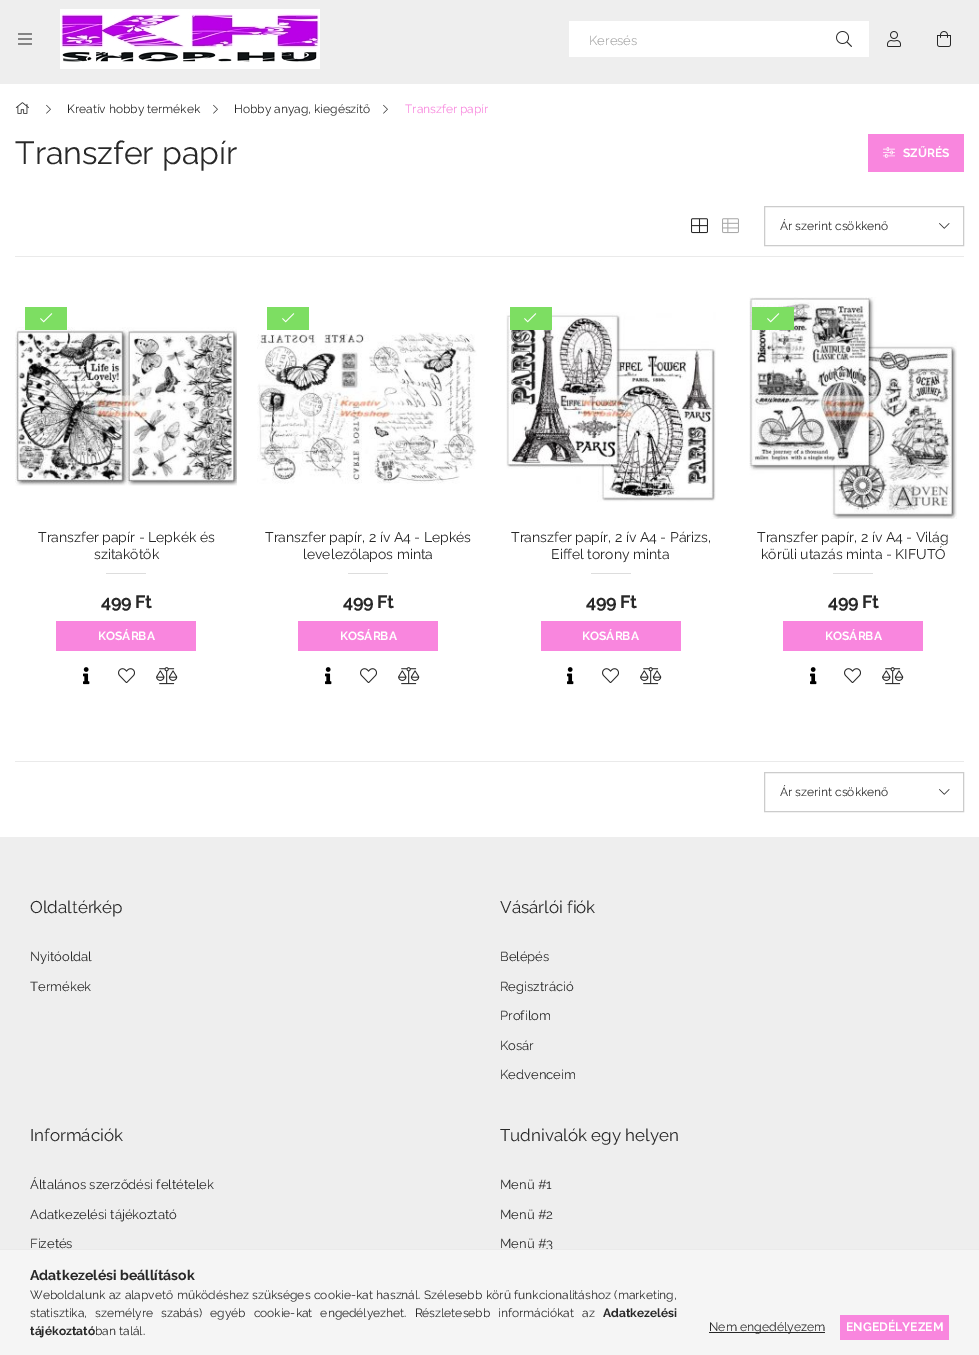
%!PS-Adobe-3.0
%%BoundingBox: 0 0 979 1355
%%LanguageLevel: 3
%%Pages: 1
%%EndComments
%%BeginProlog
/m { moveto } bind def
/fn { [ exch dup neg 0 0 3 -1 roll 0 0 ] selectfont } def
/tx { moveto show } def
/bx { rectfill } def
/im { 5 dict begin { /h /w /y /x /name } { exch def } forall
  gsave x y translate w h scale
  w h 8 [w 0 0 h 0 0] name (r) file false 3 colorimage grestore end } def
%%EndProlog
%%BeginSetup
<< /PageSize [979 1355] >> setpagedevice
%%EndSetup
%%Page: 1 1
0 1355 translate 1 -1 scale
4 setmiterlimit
1 setgray
0 0 979 1355 bx
0.933 setgray
0 0 979 84 bx
(image0.raw) 18 33 14 12 im
(image1.raw) 60 9 260 60 im
1 setgray
569 21 300 36 bx
/Raleway-Regular 13 fn
0.667 setgray
(Keresés) 589 45 tx
(image2.raw) 836 31 16 16 im
(image3.raw) 887 31 14 16 im
(image4.raw) 937 31 14 16 im
(image5.raw) 15 102 14 12 im
(image6.raw) 46 104 5 10 im
/Raleway-Regular 12 fn
0.157 setgray
(Kreatív hobby termékek) 67 113 tx
(image6.raw) 213 104 5 10 im
(Hobby anyag, kiegészítő) 234 113 tx
(image6.raw) 383 104 5 10 im
0.976 0.525 0.871 setrgbcolor
(Transzfer papír) 405 113 tx
/Raleway-Regular 32 fn
0.157 setgray
(Transzfer papír) 15 164 tx
0.976 0.525 0.871 setrgbcolor
868 134 96 38 bx
(image7.raw) 883 147 12 11 im
/Raleway-Bold 12 fn
1 setgray
(SZŰRÉS) 903 157 tx
0.918 setgray
15 256 949 1 bx
(image8.raw) 691 218 17 16 im
(image9.raw) 722 218 17 16 im
0.8 setgray
764.5 206.5 199 39 rectstroke
/Raleway-Regular 12 fn
0.157 setgray
(Ár szerint csökkenő) 780 230 tx
(image10.raw) 939 223 11 6 im
(image12.raw) 15 327 222 159 im
0.49 0.871 0.384 setrgbcolor
25 307 42 23 bx
(image11.raw) 40 313 13 10 im
/Raleway-Regular 14 fn
0.157 setgray
(Transzfer papír - Lepkék és) 38 542 tx
(szitakötők) 94 559 tx
0.867 setgray
106 573 40 1 bx
/Raleway-Bold 18 fn
0.157 setgray
101 608 m -0.5 0 (499 Ft) ashow
0.976 0.525 0.871 setrgbcolor
56 621 140 30 bx
/Raleway-Bold 12 fn
1 setgray
(KOSÁRBA) 98 640 tx
(image13.raw) 83 667 7 18 im
(image14.raw) 118 668 17 15 im
(image15.raw) 156 667 22 18 im
0.49 0.871 0.384 setrgbcolor
267 307 42 23 bx
(image11.raw) 282 313 13 10 im
(image16.raw) 257 332 220 152 im
/Raleway-Regular 14 fn
0.157 setgray
(Transzfer papír, 2 ív A4 - Lepkés) 265 542 tx
(levelezőlapos minta) 303 559 tx
0.867 setgray
348 573 40 1 bx
/Raleway-Bold 18 fn
0.157 setgray
343 608 m -0.5 0 (499 Ft) ashow
0.976 0.525 0.871 setrgbcolor
298 621 140 30 bx
/Raleway-Bold 12 fn
1 setgray
(KOSÁRBA) 340 640 tx
(image13.raw) 325 667 7 18 im
(image14.raw) 360 668 17 15 im
(image15.raw) 398 667 22 18 im
(image17.raw) 506 312 210 190 im
0.49 0.871 0.384 setrgbcolor
510 307 42 23 bx
(image11.raw) 524 313 13 10 im
/Raleway-Regular 14 fn
0.157 setgray
(Transzfer papír, 2 ív A4 - Párizs,) 511 542 tx
(Eiffel torony minta) 551 559 tx
0.867 setgray
591 573 40 1 bx
/Raleway-Bold 18 fn
0.157 setgray
586 608 m -0.5 0 (499 Ft) ashow
0.976 0.525 0.871 setrgbcolor
541 621 140 30 bx
/Raleway-Bold 12 fn
1 setgray
(KOSÁRBA) 582 640 tx
(image13.raw) 567 667 7 18 im
(image14.raw) 602 668 17 15 im
(image15.raw) 640 667 22 18 im
(image18.raw) 749 297 208 222 im
0.49 0.871 0.384 setrgbcolor
752 307 42 23 bx
(image11.raw) 767 313 13 10 im
/Raleway-Regular 14 fn
0.157 setgray
(Transzfer papír, 2 ív A4 - Világ) 757 542 tx
(körüli utazás minta - KIFUTÓ) 761 559 tx
0.867 setgray
833 573 40 1 bx
/Raleway-Bold 18 fn
0.157 setgray
828 608 m -0.5 0 (499 Ft) ashow
0.976 0.525 0.871 setrgbcolor
783 621 140 30 bx
/Raleway-Bold 12 fn
1 setgray
(KOSÁRBA) 825 640 tx
(image13.raw) 810 667 7 18 im
(image14.raw) 844 668 17 15 im
(image15.raw) 882 667 22 18 im
0.918 setgray
15 761 949 1 bx
0.8 setgray
764.5 772.5 199 39 rectstroke
/Raleway-Regular 12 fn
0.157 setgray
(Ár szerint csökkenő) 780 796 tx
(image10.raw) 939 789 11 6 im
0.933 setgray
0 837 979 412 bx
/Raleway-Regular 17 fn
0.157 setgray
(Oldaltérkép) 30 913 tx
/Raleway-Regular 13 fn
(Nyitóoldal) 30 961 tx
(Termékek) 30 991 tx
/Raleway-Regular 17 fn
(Vásárlói fiók) 500 913 tx
/Raleway-Regular 13 fn
(Belépés) 500 961 tx
(Regisztráció) 500 991 tx
(Profilom) 500 1020 tx
(Kosár) 500 1050 tx
(Kedvenceim) 500 1079 tx
/Raleway-Regular 17 fn
(Információk) 30 1141 tx
/Raleway-Regular 13 fn
(Általános szerződési feltételek) 30 1189 tx
(Adatkezelési tájékoztató) 30 1219 tx
(Fizetés) 30 1248 tx
/Raleway-Regular 17 fn
(Tudnivalók egy helyen) 500 1141 tx
/Raleway-Regular 13 fn
(Menü #1) 500 1189 tx
(Menü #2) 500 1219 tx
(Menü #3) 500 1248 tx
0.961 setgray
0 1250 979 105 bx
0.918 setgray
0 1249 979 1 bx
/Raleway-Bold 14 fn
0.157 setgray
(Adatkezelési beállítások) 30 1280 tx
/Raleway-Regular 12 fn
30 1299 m 0.5 0 32 (Weboldalunk az alapvető működéshez szükséges cookie-kat használ. Szélesebb körű funkcionalitáshoz \(marketing,) widthshow
30 1317 m 5 0 32 (statisztika, személyre szabás\) egyéb cookie-kat engedélyezhet. Részletesebb információkat az) widthshow
/Raleway-Bold 12 fn
(Adatkezelési) 603 1317 tx
(tájékoztató) 30 1335 tx
/Raleway-Regular 12 fn
(ban talál.) 95 1335 tx
709 1332 116 1 bx
/Raleway-Regular 12.25 fn
(Nem engedélyezem) 709 1331 tx
0.976 0.525 0.871 setrgbcolor
840 1315 109 25 bx
/Raleway-Bold 12.25 fn
1 setgray
(ENGEDÉLYEZEM) 846 1331 tx
showpage
%%EOF
